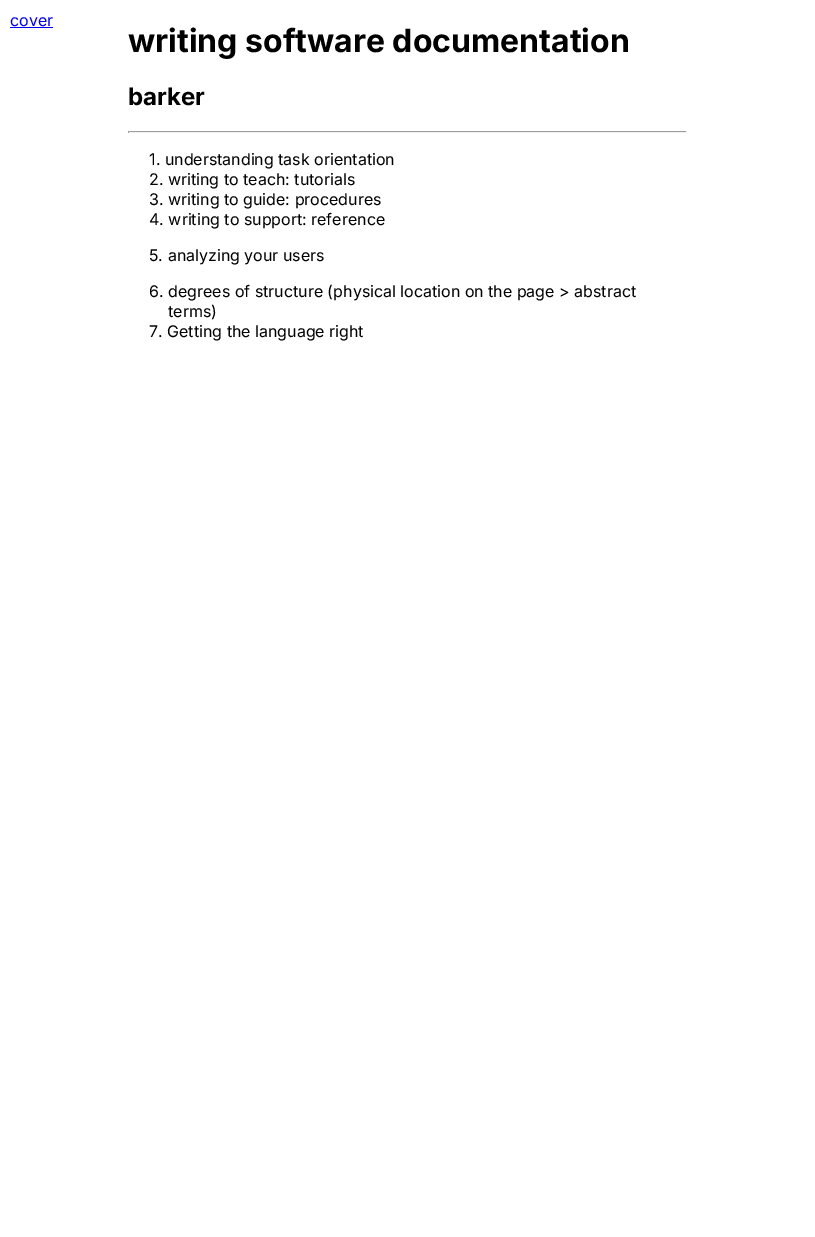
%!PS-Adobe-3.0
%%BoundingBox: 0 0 815 1237
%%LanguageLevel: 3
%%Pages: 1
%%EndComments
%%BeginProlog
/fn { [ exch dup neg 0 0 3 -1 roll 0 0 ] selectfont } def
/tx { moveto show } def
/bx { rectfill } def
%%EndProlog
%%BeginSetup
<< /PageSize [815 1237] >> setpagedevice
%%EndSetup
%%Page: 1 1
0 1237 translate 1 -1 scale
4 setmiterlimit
1 setgray
0 0 815 1237 bx
/Inter-Regular 16 fn
0 0 0.933 setrgbcolor
(cover) 10 26 tx
10 27 43 1 bx
/Inter-Bold 32 fn
0 setgray
(writing software documentation) 128 52 tx
/Inter-Bold 24 fn
(barker) 128 105 tx
0.624 setgray
128 131 559 1 bx
0.933 setgray
686 131 1 2 bx
128 132 559 1 bx
0.624 setgray
128 131 1 2 bx
/Inter-Regular 16 fn
0 setgray
(1. understanding task orientation) 149 165 tx
(2. writing to teach: tutorials) 149 185 tx
(3. writing to guide: procedures) 149 205 tx
(4. writing to support: reference) 149 225 tx
(5. analyzing your users) 149 261 tx
(6. degrees of structure \(physical location on the page > abstract) 149 297 tx
(terms\)) 168 317 tx
(7. Getting the language right) 149 337 tx
showpage
%%EOF
